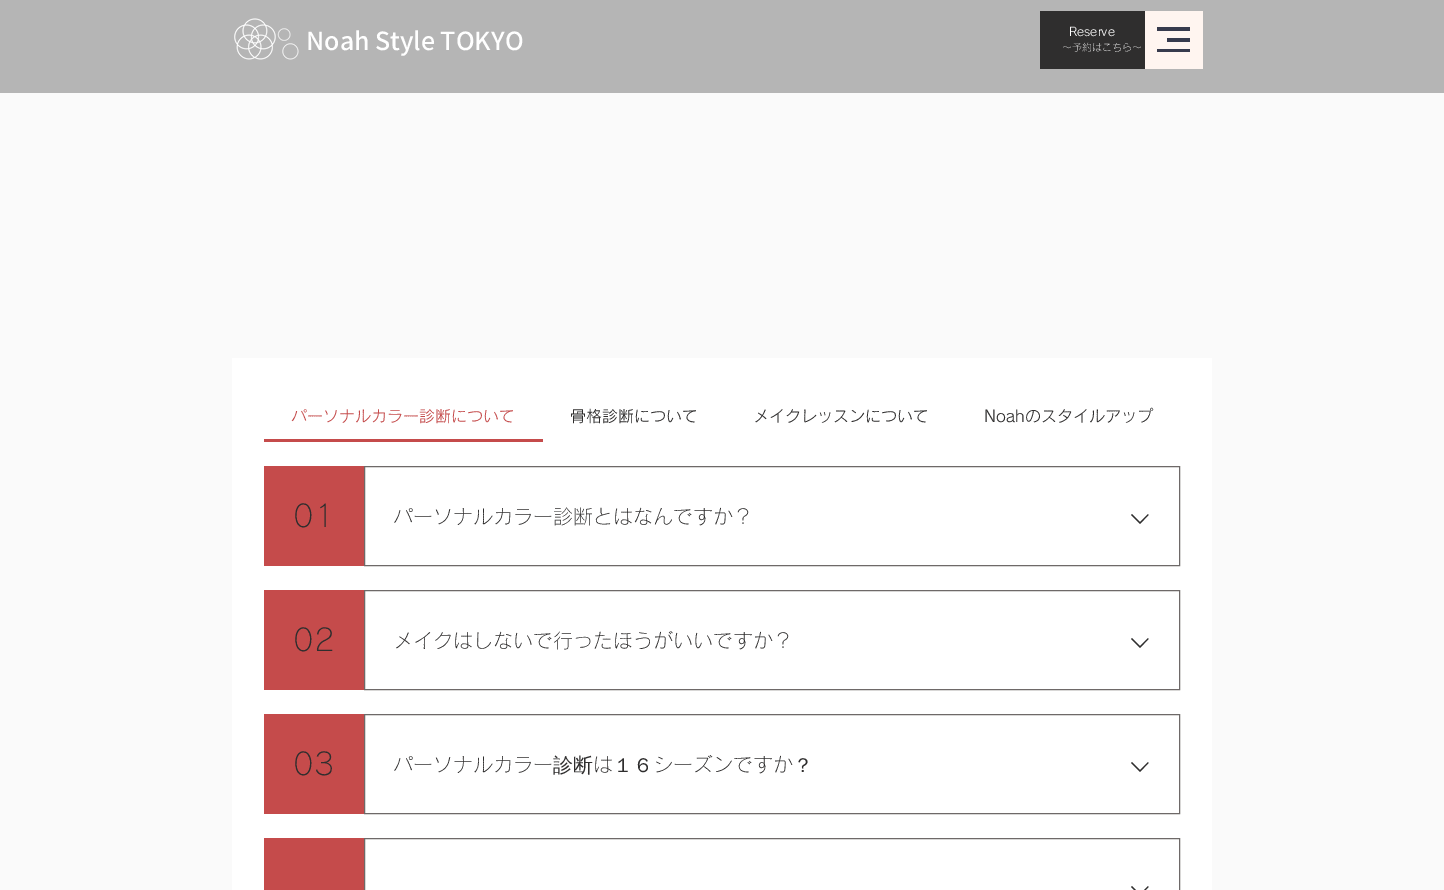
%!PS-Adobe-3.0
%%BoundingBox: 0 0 1444 890
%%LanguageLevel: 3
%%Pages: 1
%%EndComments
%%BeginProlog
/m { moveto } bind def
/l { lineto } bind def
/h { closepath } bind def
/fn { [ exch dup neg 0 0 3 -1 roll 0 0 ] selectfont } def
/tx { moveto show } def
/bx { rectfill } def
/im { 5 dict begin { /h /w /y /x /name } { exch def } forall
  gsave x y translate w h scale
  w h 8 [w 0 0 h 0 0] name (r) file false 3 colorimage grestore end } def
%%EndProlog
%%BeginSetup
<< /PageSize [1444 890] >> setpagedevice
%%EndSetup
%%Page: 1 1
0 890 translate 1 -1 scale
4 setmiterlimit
0.98 setgray
0 0 1444 890 bx
0.71 setgray
0 0 1444 93 bx
0.184 0.18 0.18 setrgbcolor
1040 11 105 58 bx
1 0.961 0.941 setrgbcolor
1145 11 58 58 bx
(image0.raw) 234 18 65 42 im
/Assistant-SemiBold 28 fn
1 setgray
(Noah Style TOKYO) 306 50 tx
/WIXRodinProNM-Medium 12 fn
(Reserve) 1069 36 tx
/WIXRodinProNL-Light 10 fn
(〜予約はこちら〜) 1062 51 tx
0.216 0.231 0.302 setrgbcolor
1157 27 33 4 bx
1167 38 23 4 bx
1157 49 33 3 bx
1 setgray
232 358 980 532 bx
0.773 0.294 0.294 setrgbcolor
264 439 279 3 bx
/WIXRodinProNM-Medium 16 fn
(パーソナルカラー診断について) 291 422 tx
0.184 0.18 0.18 setrgbcolor
(骨格診断について) 570 422 tx
(メイクレッスンについて) 753 422 tx
(Noahのスタイルアップ) 984 422 tx
0.773 0.294 0.294 setrgbcolor
264 466 100 100 bx
/WIXRodinProNL-Light 30 fn
0.184 0.18 0.18 setrgbcolor
(01) 293 527 tx
0.431 0.412 0.408 setrgbcolor
364.5 466.5 815 99 rectstroke
/WIXRodinProNL-Light 20 fn
0.184 0.18 0.18 setrgbcolor
(パーソナルカラー診断とはなんですか？) 393 524 tx
1148 514 m 1148.5 515 l 1140 524 l 1131 515 l 1132 514 l 1140 522 l h eofill
0.773 0.294 0.294 setrgbcolor
264 590 100 100 bx
/WIXRodinProNL-Light 30 fn
0.184 0.18 0.18 setrgbcolor
(02) 293 651 tx
0.431 0.412 0.408 setrgbcolor
364.5 590.5 815 99 rectstroke
/WIXRodinProNL-Light 20 fn
0.184 0.18 0.18 setrgbcolor
(メイクはしないで行ったほうがいいですか？) 393 648 tx
1148 638 m 1148.5 639 l 1140 648 l 1131 639 l 1132 638 l 1140 646 l h eofill
0.773 0.294 0.294 setrgbcolor
264 714 100 100 bx
/WIXRodinProNL-Light 30 fn
0.184 0.18 0.18 setrgbcolor
(03) 293 775 tx
0.431 0.412 0.408 setrgbcolor
364.5 714.5 815 99 rectstroke
/WIXRodinProNL-Light 20 fn
0.184 0.18 0.18 setrgbcolor
(パーソナルカラー) 393 772 tx
/WenQuanYiZenHei-Medium 20 fn
(診断) 553 772 tx
/WIXRodinProNL-Light 20 fn
(は) 593 772 tx
/WenQuanYiZenHei-Medium 20 fn
(１６) 613 772 tx
/WIXRodinProNL-Light 20 fn
(シーズンですか) 653 772 tx
/WenQuanYiZenHei-Medium 20 fn
(？) 793 772 tx
1148 762 m 1148.5 763 l 1140 772 l 1131 763 l 1132 762 l 1140 770 l h eofill
0.773 0.294 0.294 setrgbcolor
264 838 100 52 bx
0.431 0.412 0.408 setrgbcolor
364.5 838.5 815 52 rectstroke
0.184 0.18 0.18 setrgbcolor
1148 886 m 1148.5 887 l 1140 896 l 1131 887 l 1132 886 l 1140 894 l h eofill
showpage
%%EOF
